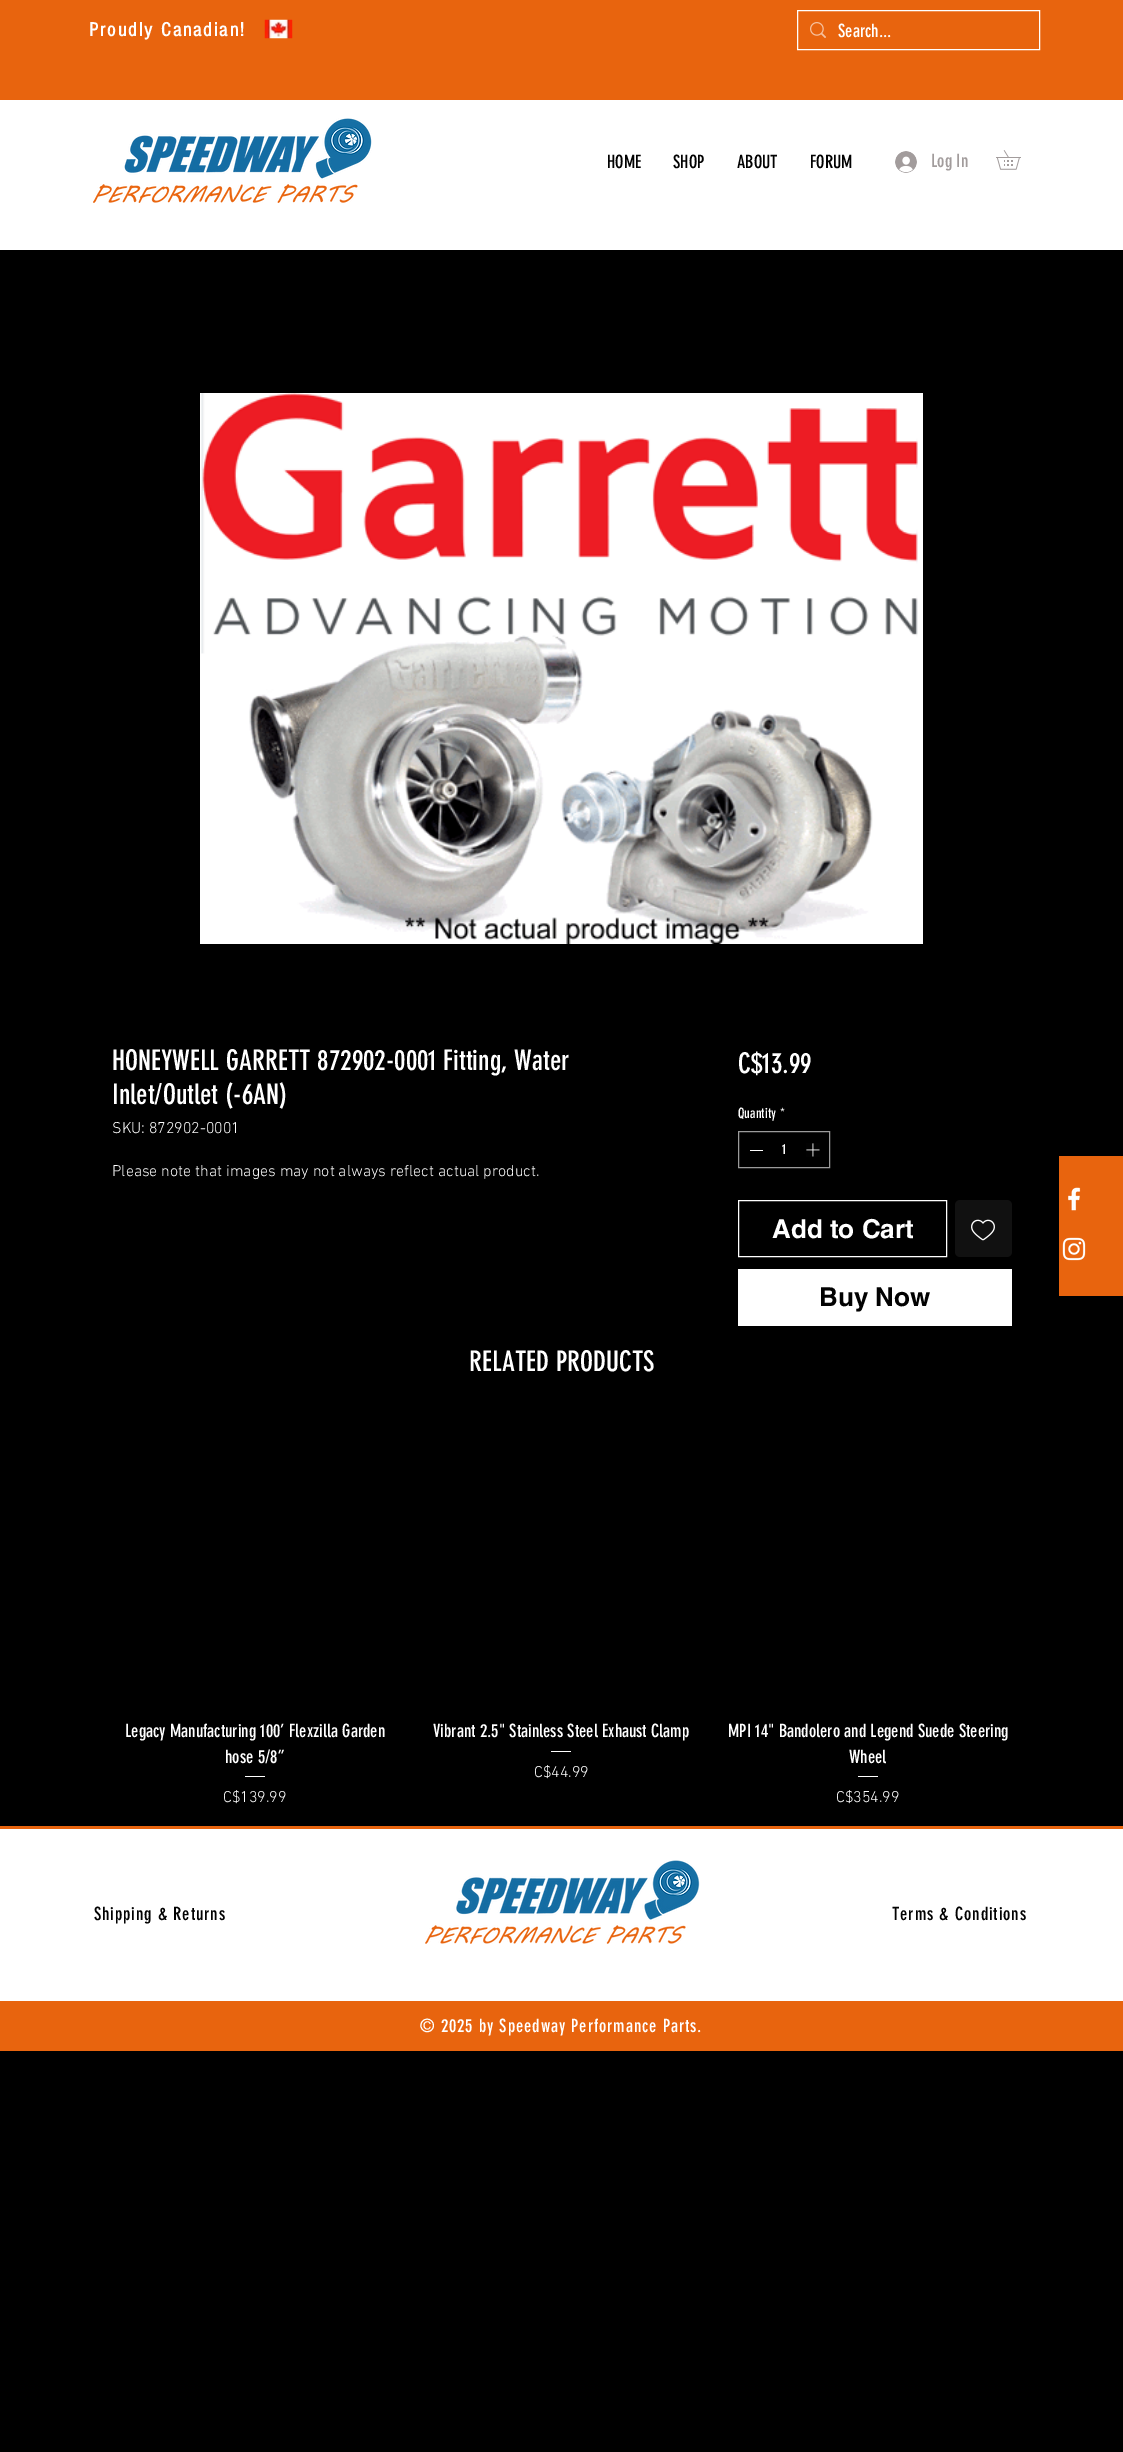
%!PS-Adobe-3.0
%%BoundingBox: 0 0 1123 2452
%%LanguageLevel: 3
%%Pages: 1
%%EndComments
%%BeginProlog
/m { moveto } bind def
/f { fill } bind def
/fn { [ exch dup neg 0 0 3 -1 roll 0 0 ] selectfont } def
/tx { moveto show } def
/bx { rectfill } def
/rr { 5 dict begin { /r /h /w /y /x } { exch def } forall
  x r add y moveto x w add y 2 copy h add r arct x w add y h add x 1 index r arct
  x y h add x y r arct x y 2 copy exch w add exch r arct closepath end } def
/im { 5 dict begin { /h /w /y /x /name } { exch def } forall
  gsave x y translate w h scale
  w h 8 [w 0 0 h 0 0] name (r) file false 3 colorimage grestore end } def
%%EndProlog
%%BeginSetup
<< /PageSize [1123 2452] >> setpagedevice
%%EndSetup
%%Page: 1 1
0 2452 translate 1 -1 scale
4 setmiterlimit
0 setgray
0 0 1123 2452 bx
0.91 0.392 0.055 setrgbcolor
0 0 1123 100 bx
/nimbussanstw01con-Bold 20 fn
1 setgray
89 36 m 2 0 (Proudly Canadian!) ashow
(image0.raw) 264 19 29 20 im
797.5 10.5 242 39 rectstroke
(image1.raw) 810 22 16 16 im
/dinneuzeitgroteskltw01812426-Regular 18 fn
(Search...) 838 37 tx
0 100 1123 150 bx
(image2.raw) 93 118 279 85 im
0.008 setgray
(HOME) 607 168 tx
(SHOP) 673 168 tx
(ABOUT) 737 168 tx
(FORUM) 810 168 tx
(image3.raw) 895 151 22 22 im
0.635 0.612 0.612 setrgbcolor
(Log In) 931 167 tx
(image4.raw) 996 150 25 20 im
(image5.raw) 200 393 723 551 im
/dinneuzeitgroteskltw01812426-Regular 28 fn
1 setgray
(HONEYWELL GARRETT 872902-0001 Fitting, Water) 112 1070 tx
(Inlet/Outlet \(-6AN\)) 112 1104 tx
/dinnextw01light-Light 16 fn
(SKU: 872902-0001) 112 1133 tx
(Please note that images may not always reflect actual product.) 112 1176 tx
/dinneuzeitgroteskltw01812426-Regular 28 fn
(C$13.99) 738 1073 tx
/dinneuzeitgroteskltw01812426-Regular 14 fn
(Quantity) 738 1118 tx
(*) 780 1118 tx
0.604 setgray
738.5 1131.5 91 36 rectstroke
1 setgray
750 1150 13 1 bx
(1) 782 1154 tx
(image6.raw) 806 1143 14 14 im
738.5 1200.5 208 56 rectstroke
/helvetica-Bold 26 fn
(Add to Cart) 772 1238 tx
0.067 setgray
955 1200 57 57 5 rr f
(image7.raw) 971 1219 24 22 im
1 setgray
738 1269 274 57 bx
0.008 setgray
(Buy Now) 819 1306 tx
/dinneuzeitgroteskltw01812426-Regular 28 fn
1 setgray
(RELATED PRODUCTS) 469 1371 tx
/dinneuzeitgroteskltw01812426-Regular 18 fn
(Legacy Manufacturing 100’ Flexzilla Garden) 125 1737 tx
(hose 5/8”) 225 1763 tx
245 1776 20 1 bx
/dinnextw01light-Light 16 fn
(C$139.99) 223 1802 tx
/dinneuzeitgroteskltw01812426-Regular 18 fn
(Vibrant 2.5" Stainless Steel Exhaust Clamp) 433 1737 tx
551 1751 20 1 bx
/dinnextw01light-Light 16 fn
(C$44.99) 534 1777 tx
/dinneuzeitgroteskltw01812426-Regular 18 fn
(MPI 14" Bandolero and Legend Suede Steering) 728 1737 tx
(Wheel) 849 1763 tx
858 1776 20 1 bx
/dinnextw01light-Light 16 fn
(C$354.99) 836 1802 tx
0.91 0.392 0.055 setrgbcolor
1059 1156 64 140 bx
(image8.raw) 1068 1187 13 24 im
(image9.raw) 1062 1237 24 24 im
1 setgray
0 1829 1123 172 bx
0.91 0.392 0.055 setrgbcolor
0 1826 1123 3 bx
/dinneuzeitgroteskltw01812426-Regular 18 fn
0.008 setgray
94 1920 m 0.9 0 (Shipping & Returns) ashow
(image10.raw) 425 1860 275 84 im
892 1920 m 0.9 0 (Terms & Conditions) ashow
0.91 0.392 0.055 setrgbcolor
0 2001 1123 50 bx
1 setgray
420 2032 m 0.9 0 (© 2025 by Speedway Performance Parts.) ashow
showpage
%%EOF
